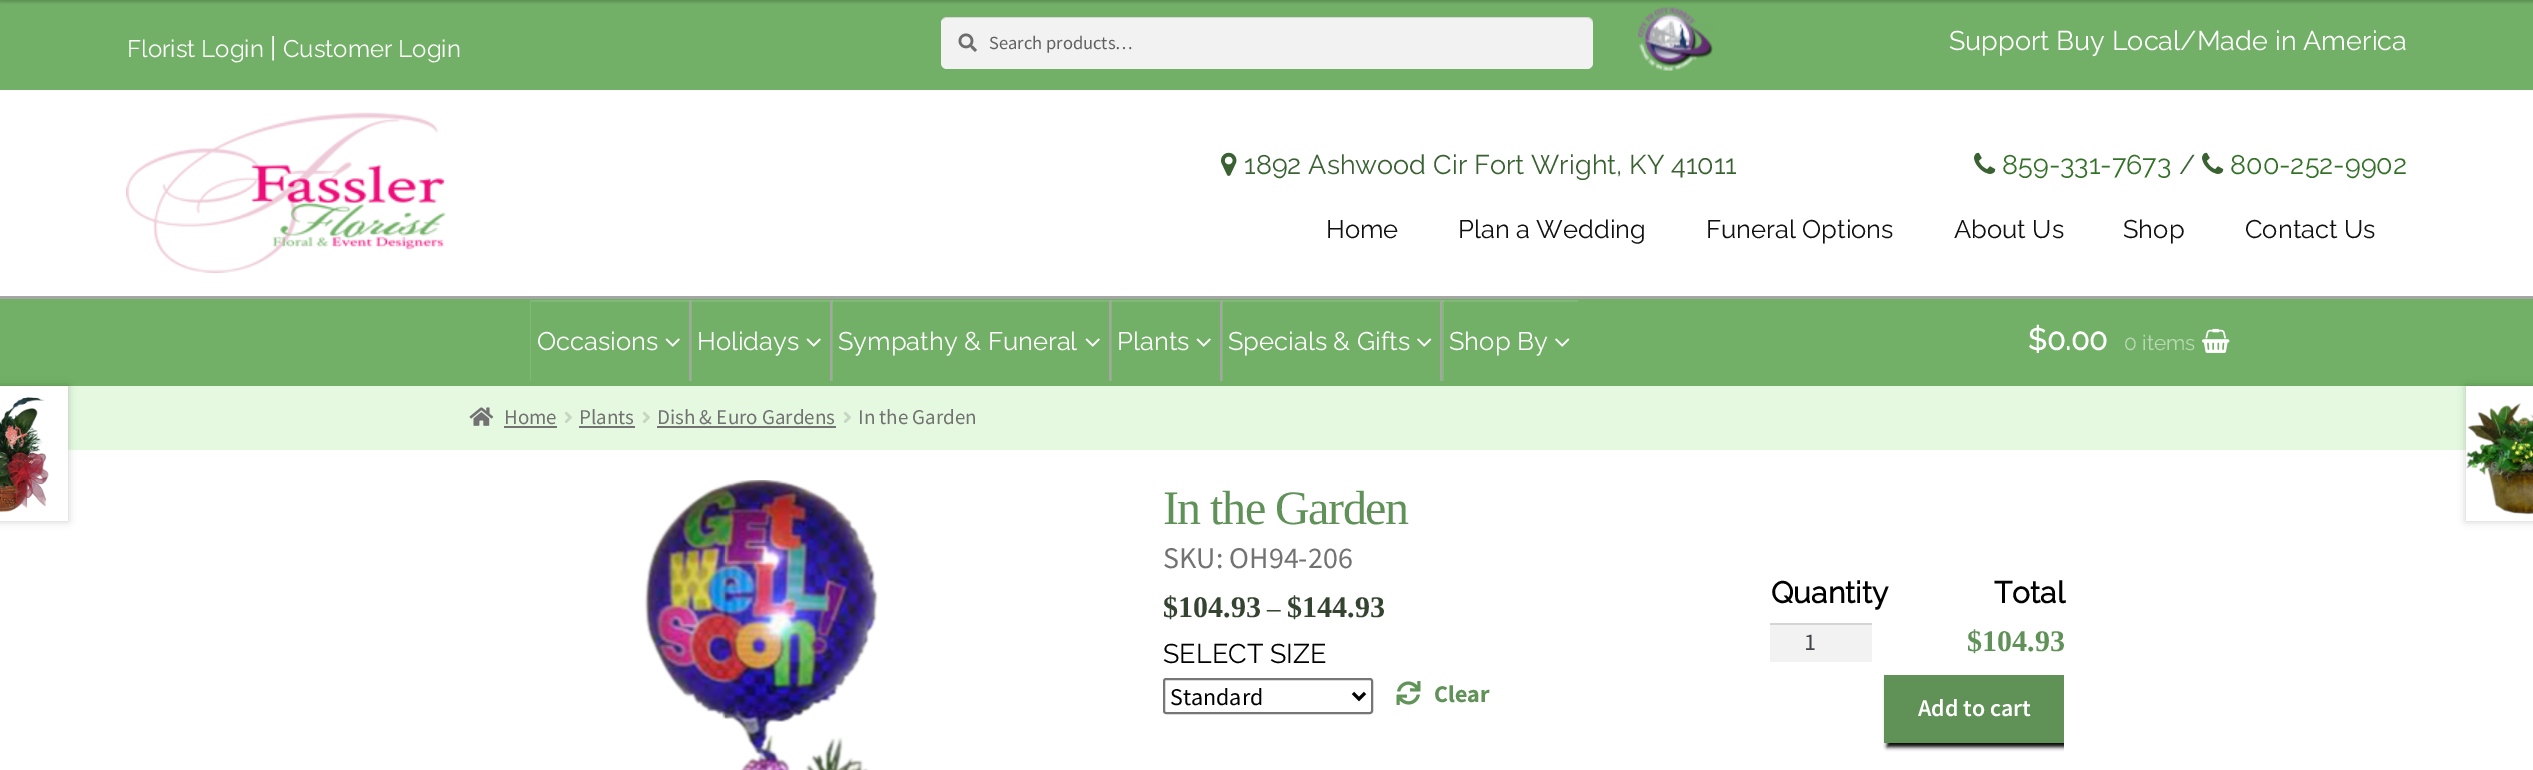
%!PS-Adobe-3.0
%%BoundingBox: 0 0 2533 770
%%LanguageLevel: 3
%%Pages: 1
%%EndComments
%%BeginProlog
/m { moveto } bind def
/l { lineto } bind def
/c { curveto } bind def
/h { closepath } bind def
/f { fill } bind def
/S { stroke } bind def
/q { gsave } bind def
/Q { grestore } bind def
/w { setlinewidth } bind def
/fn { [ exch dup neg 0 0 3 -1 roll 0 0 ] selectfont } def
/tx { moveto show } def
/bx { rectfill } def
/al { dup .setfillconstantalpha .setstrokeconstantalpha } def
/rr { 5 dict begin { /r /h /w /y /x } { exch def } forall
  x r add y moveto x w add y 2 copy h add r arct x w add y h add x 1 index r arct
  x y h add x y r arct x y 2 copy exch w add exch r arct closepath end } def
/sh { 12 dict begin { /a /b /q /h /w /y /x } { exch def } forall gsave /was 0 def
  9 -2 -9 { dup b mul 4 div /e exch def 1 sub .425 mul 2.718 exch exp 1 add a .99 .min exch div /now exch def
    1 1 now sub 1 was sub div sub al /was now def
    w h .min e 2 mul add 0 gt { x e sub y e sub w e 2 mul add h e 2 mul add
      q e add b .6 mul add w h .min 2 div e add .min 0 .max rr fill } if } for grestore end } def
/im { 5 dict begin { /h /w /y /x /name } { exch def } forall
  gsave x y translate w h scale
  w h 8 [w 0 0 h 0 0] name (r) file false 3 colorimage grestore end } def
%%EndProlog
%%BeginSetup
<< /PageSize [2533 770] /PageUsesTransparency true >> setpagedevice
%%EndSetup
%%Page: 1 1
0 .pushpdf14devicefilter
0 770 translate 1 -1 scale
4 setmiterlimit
1 setgray
0 0 2533 770 bx
0.447 0.69 0.404 setrgbcolor
0 0 2533 90 bx
(image1.raw) 1638 7 75 64 im
0 setgray
0 -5 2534 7 0 1.5 0.2 sh
/Raleway-Thin 24 fn
1 setgray
(Florist Login) 127 57 tx
/Raleway-Thin 27 fn
(|) 270 57 tx
/Raleway-Thin 24 fn
(Customer Login) 283 57 tx
0.949 setgray
941 17 652 52 6 rr f
(image0.raw) 958 33 19 19 im
0.12 al
0 setgray
946 18 m 1587 18 l 1590 18 1593 21 1593 24 c 1593 23 l 1593 20 1590 17 1587 17 c 947 17 l 945 17 943 18 942 20 c 943 19 945 18 946 18 c h f
/SourceSansPro-Regular 18.5 fn
1 al
0.38 setgray
(Search products…) 989 49 tx
/Raleway-Thin 27 fn
1 setgray
(Support Buy Local/Made in America) 1949 50 tx
(image2.raw) 126 112 320 161 im
(image3.raw) 1221 152 16 24 im
0.224 0.38 0.196 setrgbcolor
(1892 Ashwood Cir Fort Wright, KY 41011) 1244 174 tx
(image4.raw) 1974 152 22 22 im
0.196 0.443 0.153 setrgbcolor
(859-331-7673) 2002 174 tx
0.224 0.38 0.196 setrgbcolor
(/) 2179 174 tx
(image4.raw) 2202 152 22 22 im
0.196 0.443 0.153 setrgbcolor
(800-252-9902) 2230 174 tx
/Raleway-Thin 25.5 fn
0.067 setgray
(Home) 1326 238 tx
(Plan a Wedding) 1458 238 tx
(Funeral Options) 1706 238 tx
(About Us) 1954 238 tx
(Shop) 2123 238 tx
(Contact Us) 2245 238 tx
0.447 0.69 0.404 setrgbcolor
0 299 2533 87 bx
0.647 setgray
0 296 2533 3 bx
q
530 300 1048 81 rectclip
0.502 0.722 0.463 setrgbcolor
381 152 m 1726 152 l 1726 530 l 381 530 l h 531 302 m 1580 302 l 1580 382 l 531 382 l h eofill
Q
1 setgray
(Occasions) 537 350 tx
(image5.raw) 665 338 15 9 im
0.1 al
691 300 1 81 bx
1 al
0.647 setgray
689 300 2 81 bx
1 setgray
(Holidays) 697 350 tx
(image5.raw) 806 338 15 9 im
0.1 al
832 300 1 81 bx
1 al
0.647 setgray
830 300 2 81 bx
1 setgray
(Sympathy & Funeral) 838 350 tx
(image5.raw) 1085 338 15 9 im
0.1 al
1111 300 1 81 bx
1 al
0.647 setgray
1109 300 2 81 bx
1 setgray
(Plants) 1117 350 tx
(image5.raw) 1196 338 15 9 im
0.1 al
1222 300 1 81 bx
1 al
0.647 setgray
1220 300 2 81 bx
1 setgray
(Specials & Gifts) 1228 350 tx
(image6.raw) 1417 338 15 9 im
0.1 al
1442 300 2 81 bx
1 al
0.647 setgray
1440 300 2 81 bx
1 setgray
(Shop By) 1449 350 tx
(image6.raw) 1555 338 15 9 im
/Raleway-Bold 30 fn
($0.00) 2028 350 tx
/Raleway-Thin 21 fn
0.725 0.847 0.702 setrgbcolor
(0 items) 2124 350 tx
(image7.raw) 2202 328 28 25 im
0.894 0.976 0.878 setrgbcolor
68 386 2398 64 bx
(image8.raw) 469 407 25 19 im
/SourceSansPro-Regular 21 fn
0.447 setgray
(Home) 504 424 tx
504 426 53 2 bx
(image9.raw) 564 411 8 12 im
(Plants) 579 424 tx
579 426 56 2 bx
(image9.raw) 642 411 8 12 im
(Dish & Euro Gardens) 657 424 tx
657 426 179 2 bx
(image9.raw) 843 411 8 12 im
(In the Garden) 858 424 tx
0 setgray
-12 386 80 135 0 4 0.2 sh
1 setgray
0 386 68 135 bx
(image10.raw) 0 397 49 116 im
0 setgray
2466 386 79 135 0 4 0.2 sh
1 setgray
2466 386 67 135 bx
(image11.raw) 2466 403 67 112 im
(image12.raw) 644 480 234 290 im
/LiberationSerif-Regular 48 fn
0.376 0.569 0.345 setrgbcolor
1163 524 m -1.5 0 (In the Garden) ashow
/SourceSansPro-Regular 30 fn
0.447 setgray
(SKU: OH94-206) 1163 568 tx
/Raleway-Thin 27 fn
0 setgray
(SELECT SIZE) 1163 663 tx
0.463 setgray
2 w
1164 679 208 34 2 rr S
0 setgray
3 w
1353 693 m 1359 699 l 1365 693 l S
/SourceSansPro-Regular 24 fn
(Standard) 1170 705 tx
(image13.raw) 1396 681 25 24 im
/SourceSansPro-Bold 24 fn
0.376 0.569 0.345 setrgbcolor
(Clear) 1434 702 tx
/Raleway-Bold 30 fn
0 setgray
(Quantity) 1771 603 tx
0.949 setgray
1770 625 102 37 bx
0.831 setgray
1770 623 102 2 bx
/SourceSansPro-Regular 24 fn
0.263 0.271 0.294 setrgbcolor
(1) 1804 650 tx
q
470 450 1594 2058 rectclip
0 setgray
1887 680 180 67 0 2 1 sh
Q
0.376 0.573 0.345 setrgbcolor
1884 675 180 68 bx
/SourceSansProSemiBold-SemiBold 24 fn
1 setgray
(Add to cart) 1918 716 tx
/Raleway-Bold 30 fn
0 setgray
(Total) 1994 603 tx
/LiberationSerif-Bold 30 fn
0.376 0.569 0.345 setrgbcolor
($104.93) 1967 651 tx
0.204 0.267 0.192 setrgbcolor
($104.93) 1163 617 tx
/LiberationSerif-Regular 27 fn
(–) 1267 617 tx
/LiberationSerif-Bold 30 fn
($144.93) 1287 617 tx
.poppdf14devicefilter showpage
%%EOF
